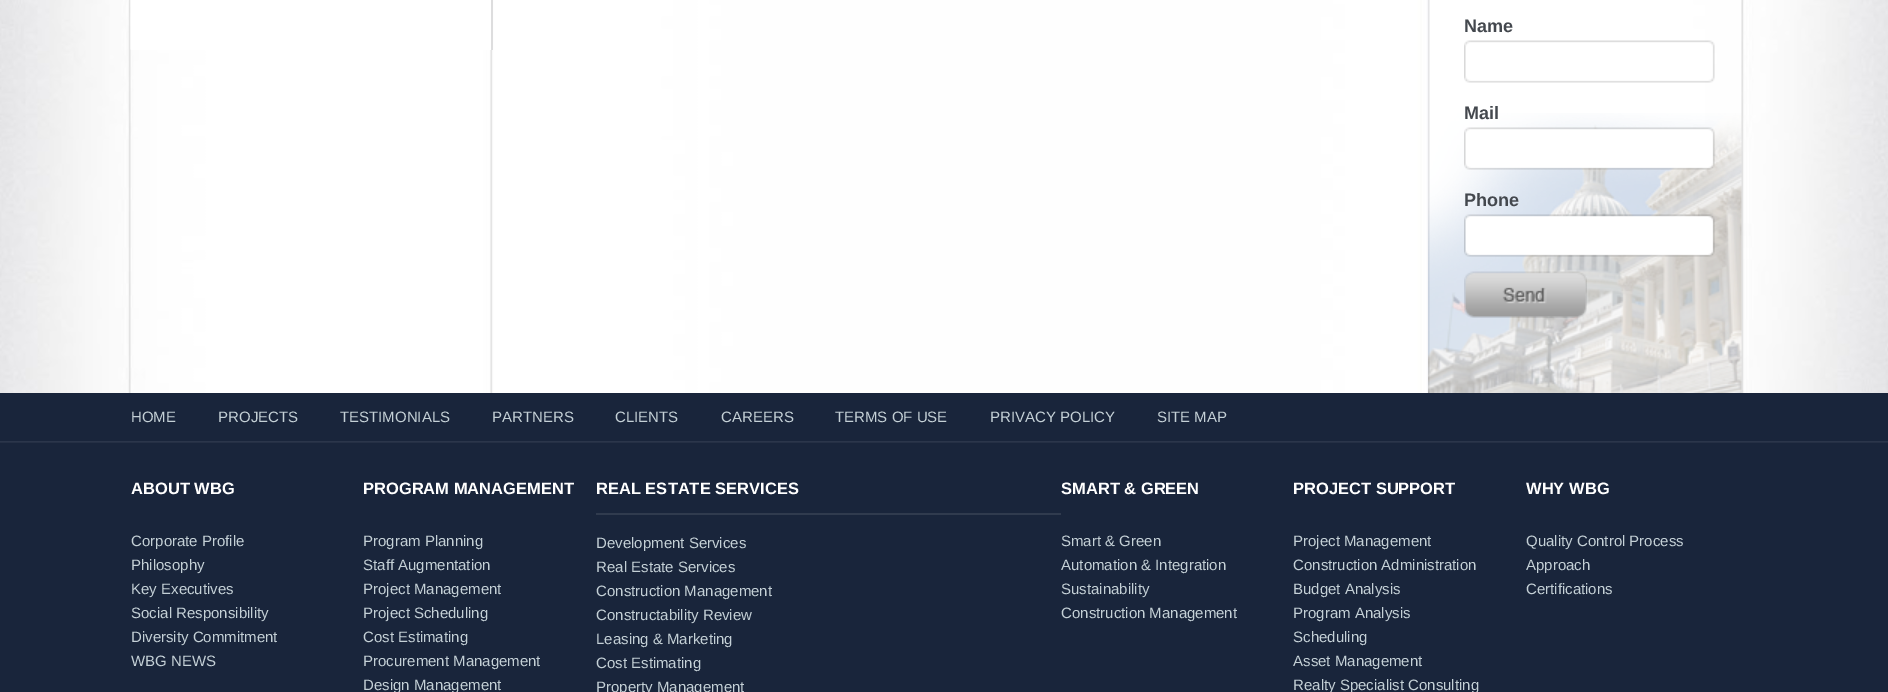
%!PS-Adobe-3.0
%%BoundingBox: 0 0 1888 692
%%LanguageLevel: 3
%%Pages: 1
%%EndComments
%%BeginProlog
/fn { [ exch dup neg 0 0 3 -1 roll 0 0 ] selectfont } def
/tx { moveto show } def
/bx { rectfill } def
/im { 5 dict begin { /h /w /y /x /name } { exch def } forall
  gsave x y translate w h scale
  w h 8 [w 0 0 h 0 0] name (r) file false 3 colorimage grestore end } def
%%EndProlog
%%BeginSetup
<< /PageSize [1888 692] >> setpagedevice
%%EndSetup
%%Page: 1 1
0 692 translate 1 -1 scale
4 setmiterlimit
1 setgray
0 0 1888 692 bx
(image0.raw) 0 0 1888 393 im
131 0 360 50 bx
(image1.raw) 130 0 1 50 im
0.867 0.867 0.871 setrgbcolor
491 0 2 50 bx
(image2.raw) 1428 113 314 280 im
/LiberationSans-Bold 18 fn
0.267 0.282 0.306 setrgbcolor
(Name) 1464 32 tx
(image3.raw) 1464 40 251 43 im
(Mail) 1464 119 tx
(image4.raw) 1464 127 251 43 im
(Phone) 1464 206 tx
(image5.raw) 1464 214 251 43 im
(image6.raw) 1464 271 123 47 im
0.098 0.145 0.231 setrgbcolor
0 393 1888 299 bx
(image7.raw) 0 441 1888 2 im
/LiberationSans-Regular 15 fn
0.769 0.816 0.839 setrgbcolor
(HOME) 131 422 tx
(PROJECTS) 218 422 tx
(TESTIMONIALS) 340 422 tx
(PARTNERS) 492 422 tx
(CLIENTS) 615 422 tx
(CAREERS) 721 422 tx
(TERMS OF USE) 835 422 tx
(PRIVACY POLICY) 990 422 tx
(SITE MAP) 1157 422 tx
/LiberationSans-Bold 16.5 fn
1 setgray
(ABOUT WBG) 131 494 tx
/LiberationSans-Regular 15 fn
0.769 0.816 0.839 setrgbcolor
(Corporate Profile) 131 546 tx
(Philosophy) 131 570 tx
(Key Executives) 131 594 tx
(Social Responsibility) 131 618 tx
(Diversity Commitment) 131 642 tx
(WBG NEWS) 131 666 tx
/LiberationSans-Bold 16.5 fn
1 setgray
(PROGRAM MANAGEMENT) 363 494 tx
/LiberationSans-Regular 15 fn
0.769 0.816 0.839 setrgbcolor
(Program Planning) 363 546 tx
(Staff Augmentation) 363 570 tx
(Project Management) 363 594 tx
(Project Scheduling) 363 618 tx
(Cost Estimating) 363 642 tx
(Procurement Management) 363 666 tx
(Design Management) 363 690 tx
0.188 0.231 0.306 setrgbcolor
596 513 465 2 bx
/LiberationSans-Bold 16.5 fn
1 setgray
(REAL ESTATE SERVICES) 596 494 tx
/LiberationSans-Regular 15 fn
0.769 0.816 0.839 setrgbcolor
(Development Services) 596 548 tx
(Real Estate Services) 596 572 tx
(Construction Management) 596 596 tx
(Constructability Review) 596 620 tx
(Leasing & Marketing) 596 644 tx
(Cost Estimating) 596 668 tx
(Property Management) 596 692 tx
/LiberationSans-Bold 16.5 fn
1 setgray
(SMART & GREEN) 1061 494 tx
/LiberationSans-Regular 15 fn
0.769 0.816 0.839 setrgbcolor
(Smart & Green) 1061 546 tx
(Automation & Integration) 1061 570 tx
(Sustainability) 1061 594 tx
(Construction Management) 1061 618 tx
/LiberationSans-Bold 16.5 fn
1 setgray
(PROJECT SUPPORT) 1293 494 tx
/LiberationSans-Regular 15 fn
0.769 0.816 0.839 setrgbcolor
(Project Management) 1293 546 tx
(Construction Administration) 1293 570 tx
(Budget Analysis) 1293 594 tx
(Program Analysis) 1293 618 tx
(Scheduling) 1293 642 tx
(Asset Management) 1293 666 tx
(Realty Specialist Consulting) 1293 690 tx
/LiberationSans-Bold 16.5 fn
1 setgray
(WHY WBG) 1526 494 tx
/LiberationSans-Regular 15 fn
0.769 0.816 0.839 setrgbcolor
(Quality Control Process) 1526 546 tx
(Approach) 1526 570 tx
(Certifications) 1526 594 tx
showpage
%%EOF
